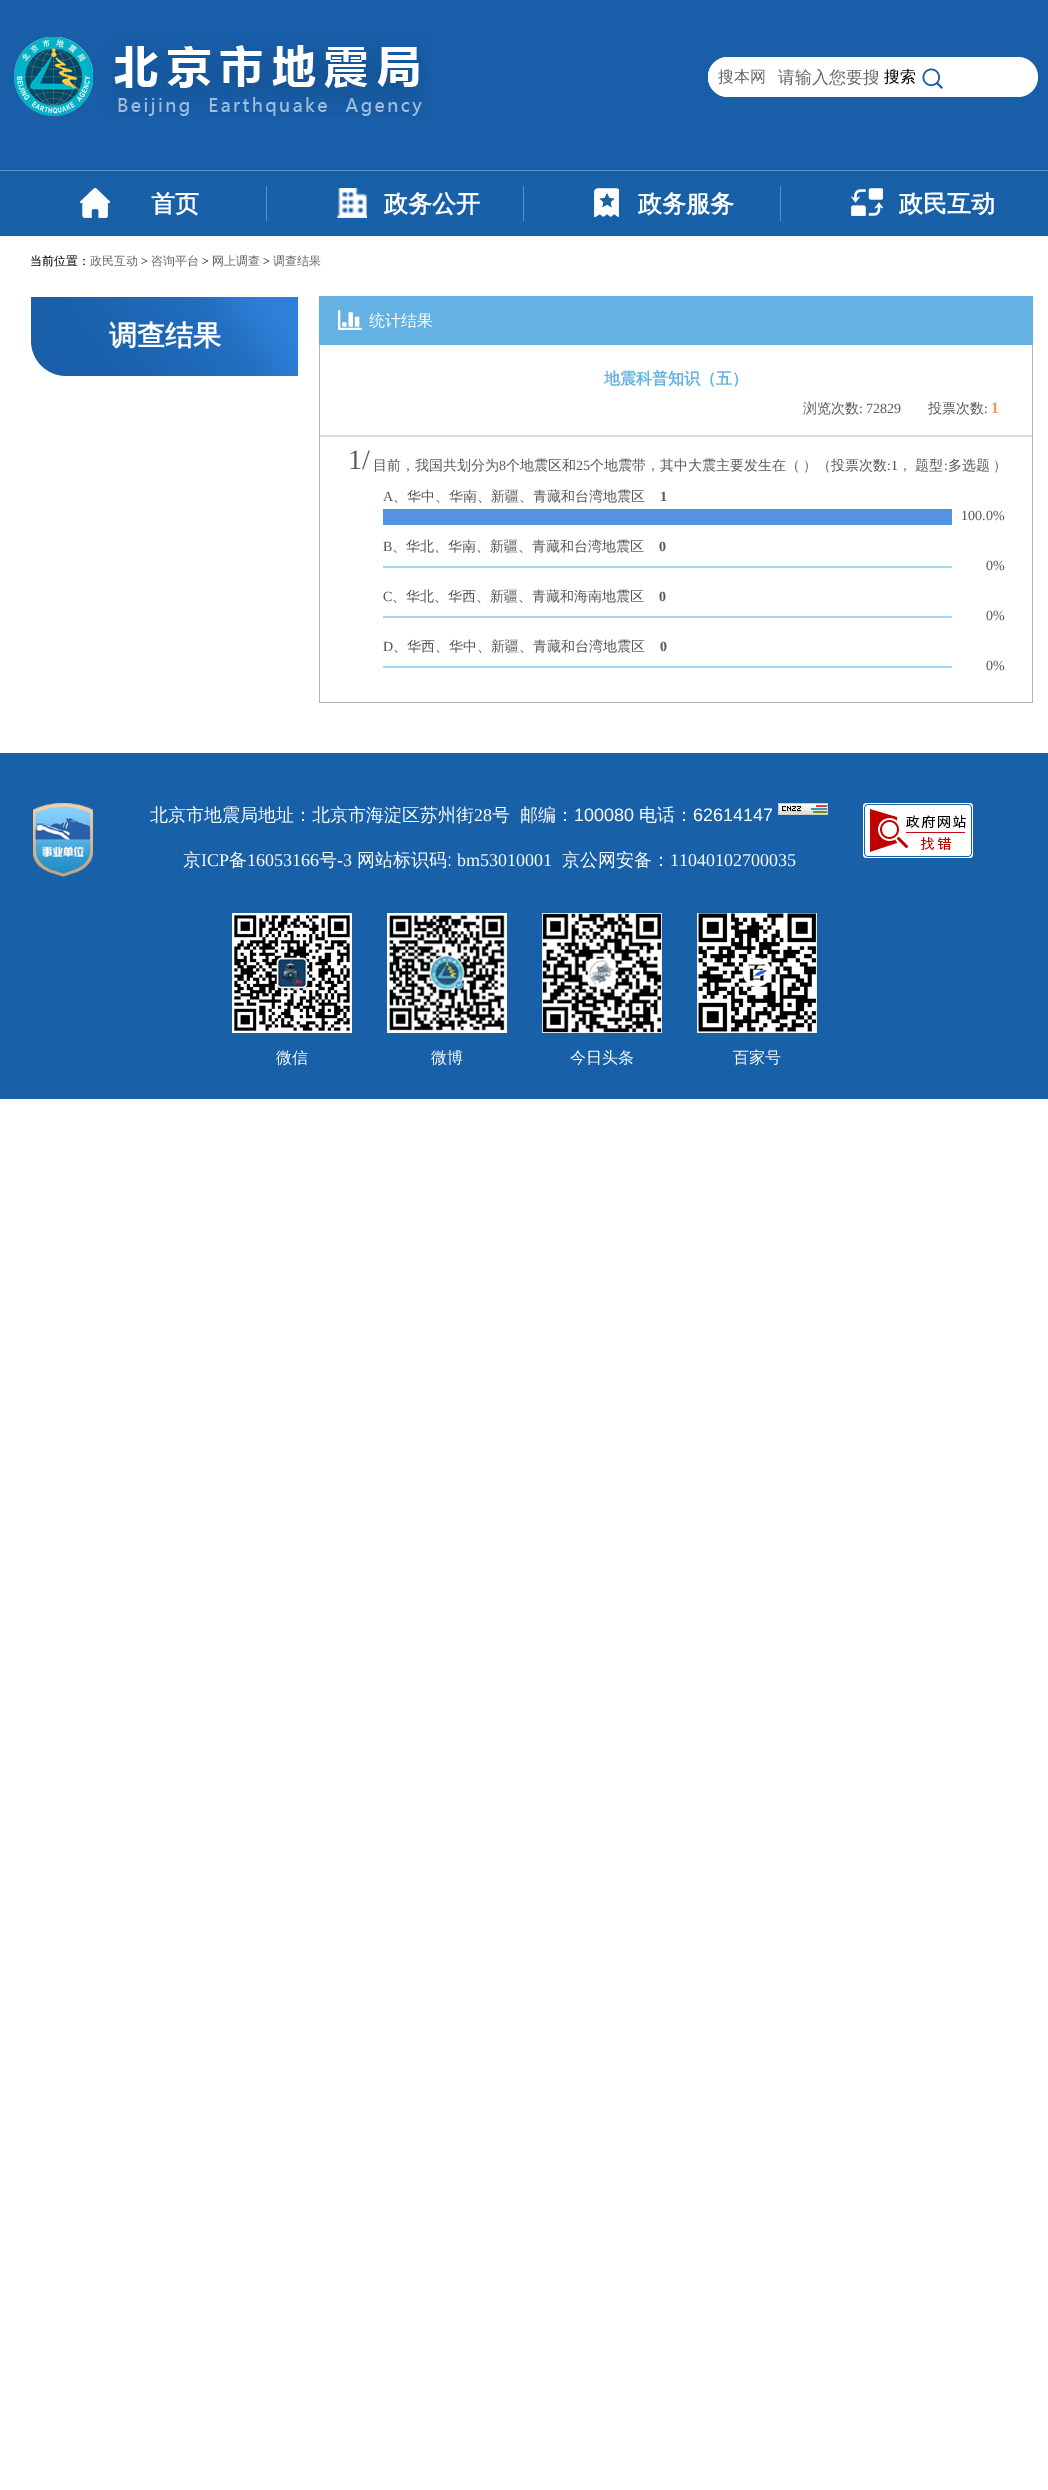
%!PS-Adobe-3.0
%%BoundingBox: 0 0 1048 2490
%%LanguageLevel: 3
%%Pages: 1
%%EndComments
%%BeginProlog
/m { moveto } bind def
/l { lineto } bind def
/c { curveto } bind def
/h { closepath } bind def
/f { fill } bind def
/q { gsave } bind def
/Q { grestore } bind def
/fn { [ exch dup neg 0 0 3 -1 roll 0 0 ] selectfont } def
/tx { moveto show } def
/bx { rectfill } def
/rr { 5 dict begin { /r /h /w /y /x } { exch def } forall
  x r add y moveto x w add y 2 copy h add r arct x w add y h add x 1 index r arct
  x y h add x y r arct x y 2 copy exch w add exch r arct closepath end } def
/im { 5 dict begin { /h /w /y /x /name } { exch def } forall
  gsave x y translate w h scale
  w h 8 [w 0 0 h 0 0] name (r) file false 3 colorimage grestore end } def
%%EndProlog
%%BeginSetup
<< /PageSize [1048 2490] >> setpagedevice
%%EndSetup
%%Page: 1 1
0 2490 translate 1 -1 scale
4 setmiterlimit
1 setgray
0 0 1048 2490 bx
0.094 0.369 0.663 setrgbcolor
0 0 1048 170 bx
0.353 0.569 0.773 setrgbcolor
0 170 1048 1 bx
(image0.raw) 14 37 418 80 im
1 setgray
708 57 330 40 20 rr f
728 57 m 768 57 l 768 97 l 728 97 l 717 97 708 88 708 77 c 708 66 717 57 728 57 c h f
/WenQuanYiZenHei-Medium 16 fn
0.4 setgray
(搜本网) 718 82 tx
q
778 66 100 23 rectclip
/WenQuanYiZenHei-Medium 17 fn
(请输入您要搜) 778 83 tx
Q
0 setgray
(搜索) 884 82 tx
(image1.raw) 922 68 21 21 im
0.094 0.376 0.659 setrgbcolor
0 171 1048 65 bx
0.353 0.569 0.773 setrgbcolor
266 186 1 35 bx
(image2.raw) 80 188 30 30 im
/WenQuanYiZenHei-Bold 24 fn
1 setgray
(首页) 151 212 tx
0.353 0.569 0.773 setrgbcolor
523 186 1 35 bx
(image3.raw) 337 188 30 30 im
1 setgray
(政务公开) 384 212 tx
0.353 0.569 0.773 setrgbcolor
780 186 1 35 bx
(image4.raw) 594 188 25 29 im
1 setgray
(政务服务) 638 212 tx
(image5.raw) 851 188 32 28 im
(政民互动) 899 212 tx
/WenQuanYiZenHei-Medium 12 fn
0 setgray
(当前位置：) 30 265 tx
0.4 setgray
(政民互动) 90 265 tx
/LiberationSerif-Regular 12 fn
0 setgray
(>) 141 265 tx
/WenQuanYiZenHei-Medium 12 fn
0.4 setgray
(咨询平台) 151 265 tx
/LiberationSerif-Regular 12 fn
0 setgray
(>) 202 265 tx
/WenQuanYiZenHei-Medium 12 fn
0.4 setgray
(网上调查) 212 265 tx
/LiberationSerif-Regular 12 fn
0 setgray
(>) 263 265 tx
/WenQuanYiZenHei-Medium 12 fn
0.4 setgray
(调查结果) 273 265 tx
(image6.raw) 31 297 267 79 im
/WenQuanYiZenHei-Bold 28 fn
1 setgray
(调查结果) 109 345 tx
0.863 setgray
320 435 712 2 bx
0.392 0.698 0.89 setrgbcolor
319 296 714 49 bx
(image7.raw) 338 310 24 20 im
/WenQuanYiZenHei-Medium 16 fn
1 setgray
(统计结果) 369 326 tx
0.71 setgray
1032 345 1 358 bx
319 702 714 1 bx
319 345 1 358 bx
/WenQuanYiZenHei-Bold 16 fn
0.392 0.698 0.89 setrgbcolor
(地震科普知识（五）) 604 384 tx
/WenQuanYiZenHei-Medium 14 fn
0.349 0.341 0.341 setrgbcolor
(浏览次数) 803 413 tx
/LiberationSerif-Regular 14 fn
(: 72829) 859 413 tx
/WenQuanYiZenHei-Medium 14 fn
(投票次数) 928 413 tx
/LiberationSerif-Regular 14 fn
(:) 984 413 tx
/LiberationSerif-Bold 16 fn
0.902 0.616 0.384 setrgbcolor
(1) 991 413 tx
/LiberationSerif-Regular 28 fn
0.349 0.341 0.341 setrgbcolor
(1/) 348 469 tx
/WenQuanYiZenHei-Medium 14 fn
(目前，我国共划分为) 373 470 tx
/LiberationSerif-Regular 14 fn
(8) 499 470 tx
/WenQuanYiZenHei-Medium 14 fn
(个地震区和) 506 470 tx
/LiberationSerif-Regular 14 fn
(25) 576 470 tx
/WenQuanYiZenHei-Medium 14 fn
590 470 m -1 0 32 (个地震带，其中大震主要发生在（ ）（投票次数) widthshow
/LiberationSerif-Regular 14 fn
(:1) 887 470 tx
/WenQuanYiZenHei-Medium 14 fn
898 470 m -1 0 32 (， 题型) widthshow
/LiberationSerif-Regular 14 fn
(:) 944 470 tx
/WenQuanYiZenHei-Medium 14 fn
948 470 m -1 0 32 (多选题 ）) widthshow
/LiberationSerif-Regular 14 fn
(A) 383 501 tx
/WenQuanYiZenHei-Medium 14 fn
(、华中、华南、新疆、青藏和台湾地震区) 393 501 tx
/LiberationSerif-Bold 14 fn
(1) 660 501 tx
0.337 0.573 0.89 setrgbcolor
383 509 569 16 bx
/LiberationSerif-Regular 14 fn
0.349 0.341 0.341 setrgbcolor
(100.0%) 961 520 tx
(B) 383 551 tx
/WenQuanYiZenHei-Medium 14 fn
(、华北、华南、新疆、青藏和台湾地震区) 392 551 tx
/LiberationSerif-Bold 14 fn
(0) 659 551 tx
0.635 0.839 0.965 setrgbcolor
383 566 569 2 bx
/LiberationSerif-Regular 14 fn
0.349 0.341 0.341 setrgbcolor
(0%) 986 570 tx
(C) 383 601 tx
/WenQuanYiZenHei-Medium 14 fn
(、华北、华西、新疆、青藏和海南地震区) 392 601 tx
/LiberationSerif-Bold 14 fn
(0) 659 601 tx
0.635 0.839 0.965 setrgbcolor
383 616 569 2 bx
/LiberationSerif-Regular 14 fn
0.349 0.341 0.341 setrgbcolor
(0%) 986 620 tx
(D) 383 651 tx
/WenQuanYiZenHei-Medium 14 fn
(、华西、华中、新疆、青藏和台湾地震区) 393 651 tx
/LiberationSerif-Bold 14 fn
(0) 660 651 tx
0.635 0.839 0.965 setrgbcolor
383 666 569 2 bx
/LiberationSerif-Regular 14 fn
0.349 0.341 0.341 setrgbcolor
(0%) 986 670 tx
0.094 0.376 0.659 setrgbcolor
0 753 1048 346 bx
(image8.raw) 33 803 60 74 im
/WenQuanYiZenHei-Medium 18 fn
1 setgray
(北京市地震局地址：北京市海淀区苏州街) 150 821 tx
/LiberationSerif-Regular 18 fn
(28) 474 821 tx
/WenQuanYiZenHei-Medium 18 fn
(号) 492 821 tx
(邮编：) 520 821 tx
/LiberationSans-Regular 18 fn
(100080) 574 821 tx
/WenQuanYiZenHei-Medium 18 fn
(电话：) 639 821 tx
/LiberationSans-Regular 18 fn
(62614147) 693 821 tx
(image9.raw) 778 803 50 12 im
/WenQuanYiZenHei-Medium 18 fn
(京) 183 866 tx
/LiberationSerif-Regular 18 fn
(ICP) 201 866 tx
/WenQuanYiZenHei-Medium 18 fn
(备) 229 866 tx
/LiberationSerif-Regular 18 fn
(16053166) 247 866 tx
/WenQuanYiZenHei-Medium 18 fn
(号) 319 866 tx
/LiberationSerif-Regular 18 fn
(-3) 337 866 tx
/WenQuanYiZenHei-Medium 18 fn
(网站标识码) 357 866 tx
/LiberationSans-Regular 18 fn
(:) 447 866 tx
/LiberationSerif-Regular 18 fn
(bm53010001) 457 866 tx
/WenQuanYiZenHei-Medium 18 fn
(京公网安备：) 562 866 tx
/LiberationSerif-Regular 18 fn
(11040102700035) 670 866 tx
(image10.raw) 863 803 110 55 im
(image11.raw) 232 913 120 120 im
/WenQuanYiZenHei-Medium 16 fn
(微信) 276 1063 tx
(image12.raw) 387 913 120 120 im
(微博) 431 1063 tx
(image13.raw) 542 913 120 120 im
(今日头条) 570 1063 tx
(image14.raw) 697 913 120 120 im
(百家号) 733 1063 tx
showpage
%%EOF
